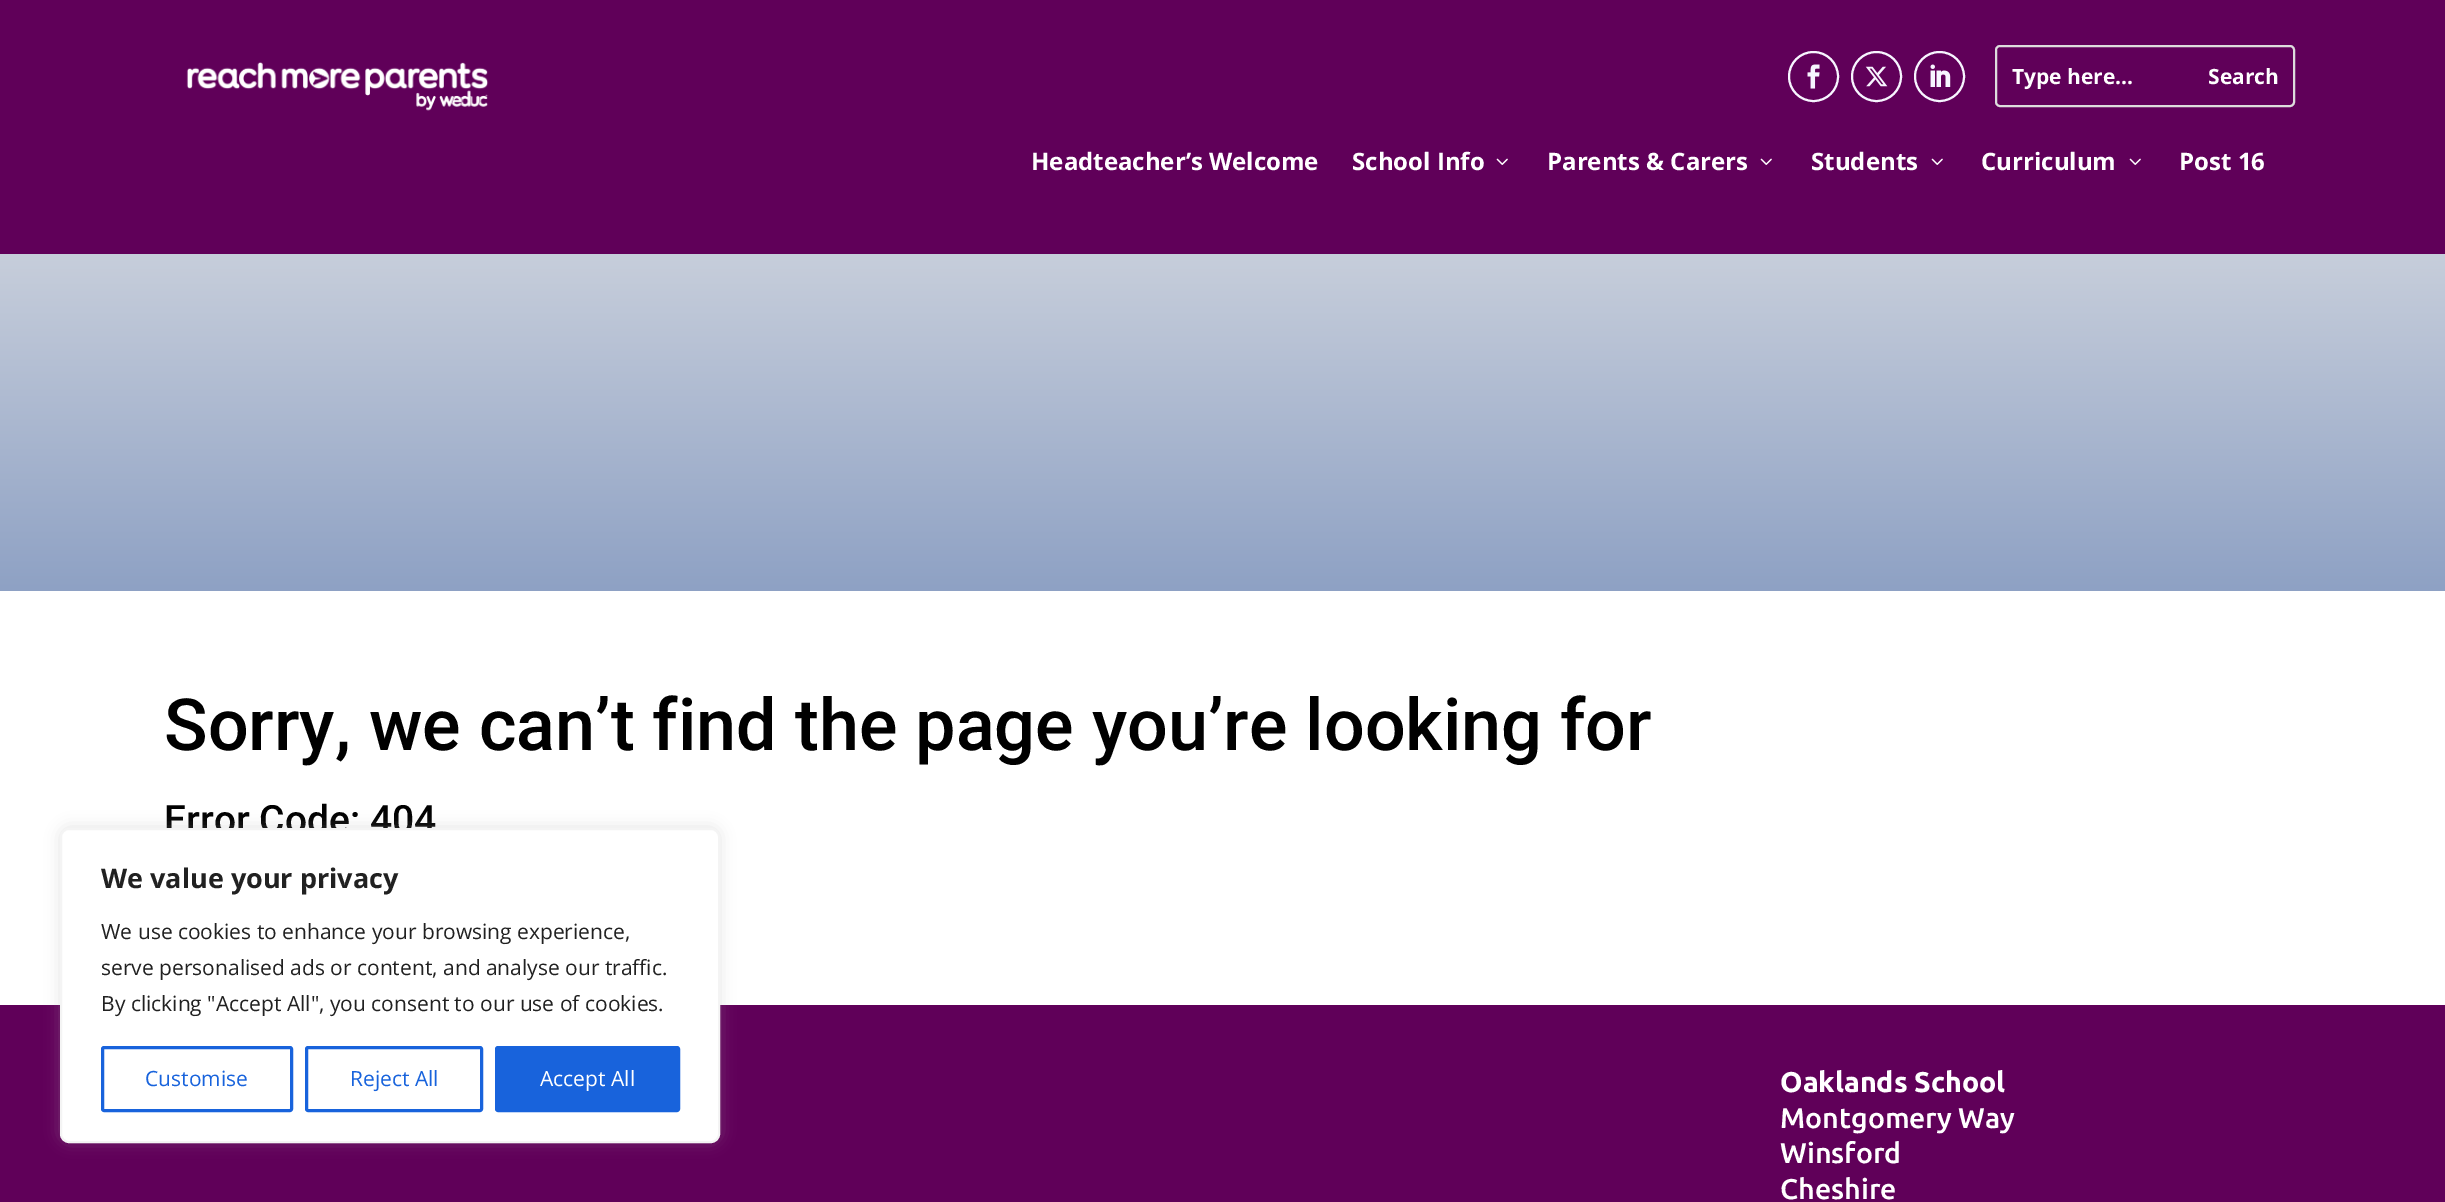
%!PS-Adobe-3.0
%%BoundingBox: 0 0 2445 1202
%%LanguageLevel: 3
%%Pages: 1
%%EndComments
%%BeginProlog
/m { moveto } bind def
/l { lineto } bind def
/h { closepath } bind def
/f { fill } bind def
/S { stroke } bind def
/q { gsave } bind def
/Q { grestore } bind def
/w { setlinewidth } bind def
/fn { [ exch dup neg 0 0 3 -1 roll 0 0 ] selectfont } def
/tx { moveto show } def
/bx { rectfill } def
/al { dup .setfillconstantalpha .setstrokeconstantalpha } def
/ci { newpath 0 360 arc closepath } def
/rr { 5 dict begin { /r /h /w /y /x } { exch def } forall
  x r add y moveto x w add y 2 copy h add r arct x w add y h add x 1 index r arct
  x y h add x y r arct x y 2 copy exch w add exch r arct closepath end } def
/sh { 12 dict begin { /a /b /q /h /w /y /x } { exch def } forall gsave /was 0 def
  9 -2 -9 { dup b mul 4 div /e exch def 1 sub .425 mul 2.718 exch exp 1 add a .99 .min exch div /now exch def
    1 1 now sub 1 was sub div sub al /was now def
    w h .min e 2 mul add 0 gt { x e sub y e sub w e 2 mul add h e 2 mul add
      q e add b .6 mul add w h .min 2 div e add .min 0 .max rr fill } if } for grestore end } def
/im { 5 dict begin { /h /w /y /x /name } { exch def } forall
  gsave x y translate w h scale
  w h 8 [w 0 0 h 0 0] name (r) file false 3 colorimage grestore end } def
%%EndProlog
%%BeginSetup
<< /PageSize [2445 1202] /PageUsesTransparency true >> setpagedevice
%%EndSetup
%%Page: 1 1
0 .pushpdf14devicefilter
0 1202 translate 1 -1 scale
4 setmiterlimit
1 setgray
0 0 2445 1202 bx
0.376 0 0.349 setrgbcolor
0 0 2445 254 bx
(image0.raw) 186 62 303 49 im
0.969 0.961 1 setrgbcolor
2 w
1813.5 76.5 24.5 ci S
(image1.raw) 1807 64 13 25 im
1876.5 76.5 24.5 ci S
(image2.raw) 1865 66 23 21 im
1939.5 76.5 24.5 ci S
(image3.raw) 1930 64 21 23 im
0.867 setgray
1996 46 298 60 4 rr S
/OpenSans-Bold 21 fn
1 setgray
(Type here...) 2012 84 tx
(Search) 2208 84 tx
/OpenSans-Bold 24 fn
(Headteacher’s Welcome) 1031 170 tx
(School Info) 1352 170 tx
(image4.raw) 1496 158 12 7 im
(Parents & Carers) 1547 170 tx
(image4.raw) 1760 158 12 7 im
(Students) 1811 170 tx
(image4.raw) 1931 158 12 7 im
(Curriculum) 1981 170 tx
(image4.raw) 2129 158 12 7 im
(Post 16) 2179 170 tx
q 0 254 m 2445 254 l 2445 591 l 0 591 l h clip newpath
<< /ShadingType 2 /ColorSpace /DeviceRGB /Coords [1223 51 1223 591] /Extend [true true] /Function << /FunctionType 2 /Domain [0 1] /C0 [0.914 0.914 0.914] /C1 [0.557 0.631 0.769] /N 1 >> >> shfill Q
/Roboto-Medium 72 fn
0 setgray
(Sorry, we can’t find the page you’re looking for) 164 750 tx
/Roboto-Medium 39 fn
(Error Code: 404) 164 833 tx
0.376 0 0.349 setrgbcolor
0 1005 2445 197 bx
/Ubuntu-Bold 28.5 fn
1 setgray
(Oaklands School) 1780 1092 tx
/Ubuntu-Medium 28.5 fn
(Montgomery Way) 1780 1128 tx
(Winsford) 1780 1163 tx
(Cheshire) 1780 1199 tx
0.675 0.671 0.671 setrgbcolor
60 827 660 315 9 7.5 0.3 sh
1 setgray
61 829 658 313 8 rr q f Q
0.957 setgray
S
/OpenSans-Bold 27 fn
0.129 setgray
(We value your privacy) 101 888 tx
/OpenSans-Regular 21 fn
(We use cookies to enhance your browsing experience,) 101 939 tx
(serve personalised ads or content, and analyse our traffic.) 101 975 tx
(By clicking "Accept All", you consent to our use of cookies.) 101 1011 tx
0.094 0.388 0.863 setrgbcolor
3 w
102.5 1047.5 189 63 1.5 rr S
(Customise) 145 1086 tx
306.5 1047.5 175 63 1.5 rr S
(Reject All) 350 1086 tx
496.5 1047.5 182 63 1.5 rr q f Q
S
1 setgray
(Accept All) 540 1086 tx
.poppdf14devicefilter showpage
%%EOF
